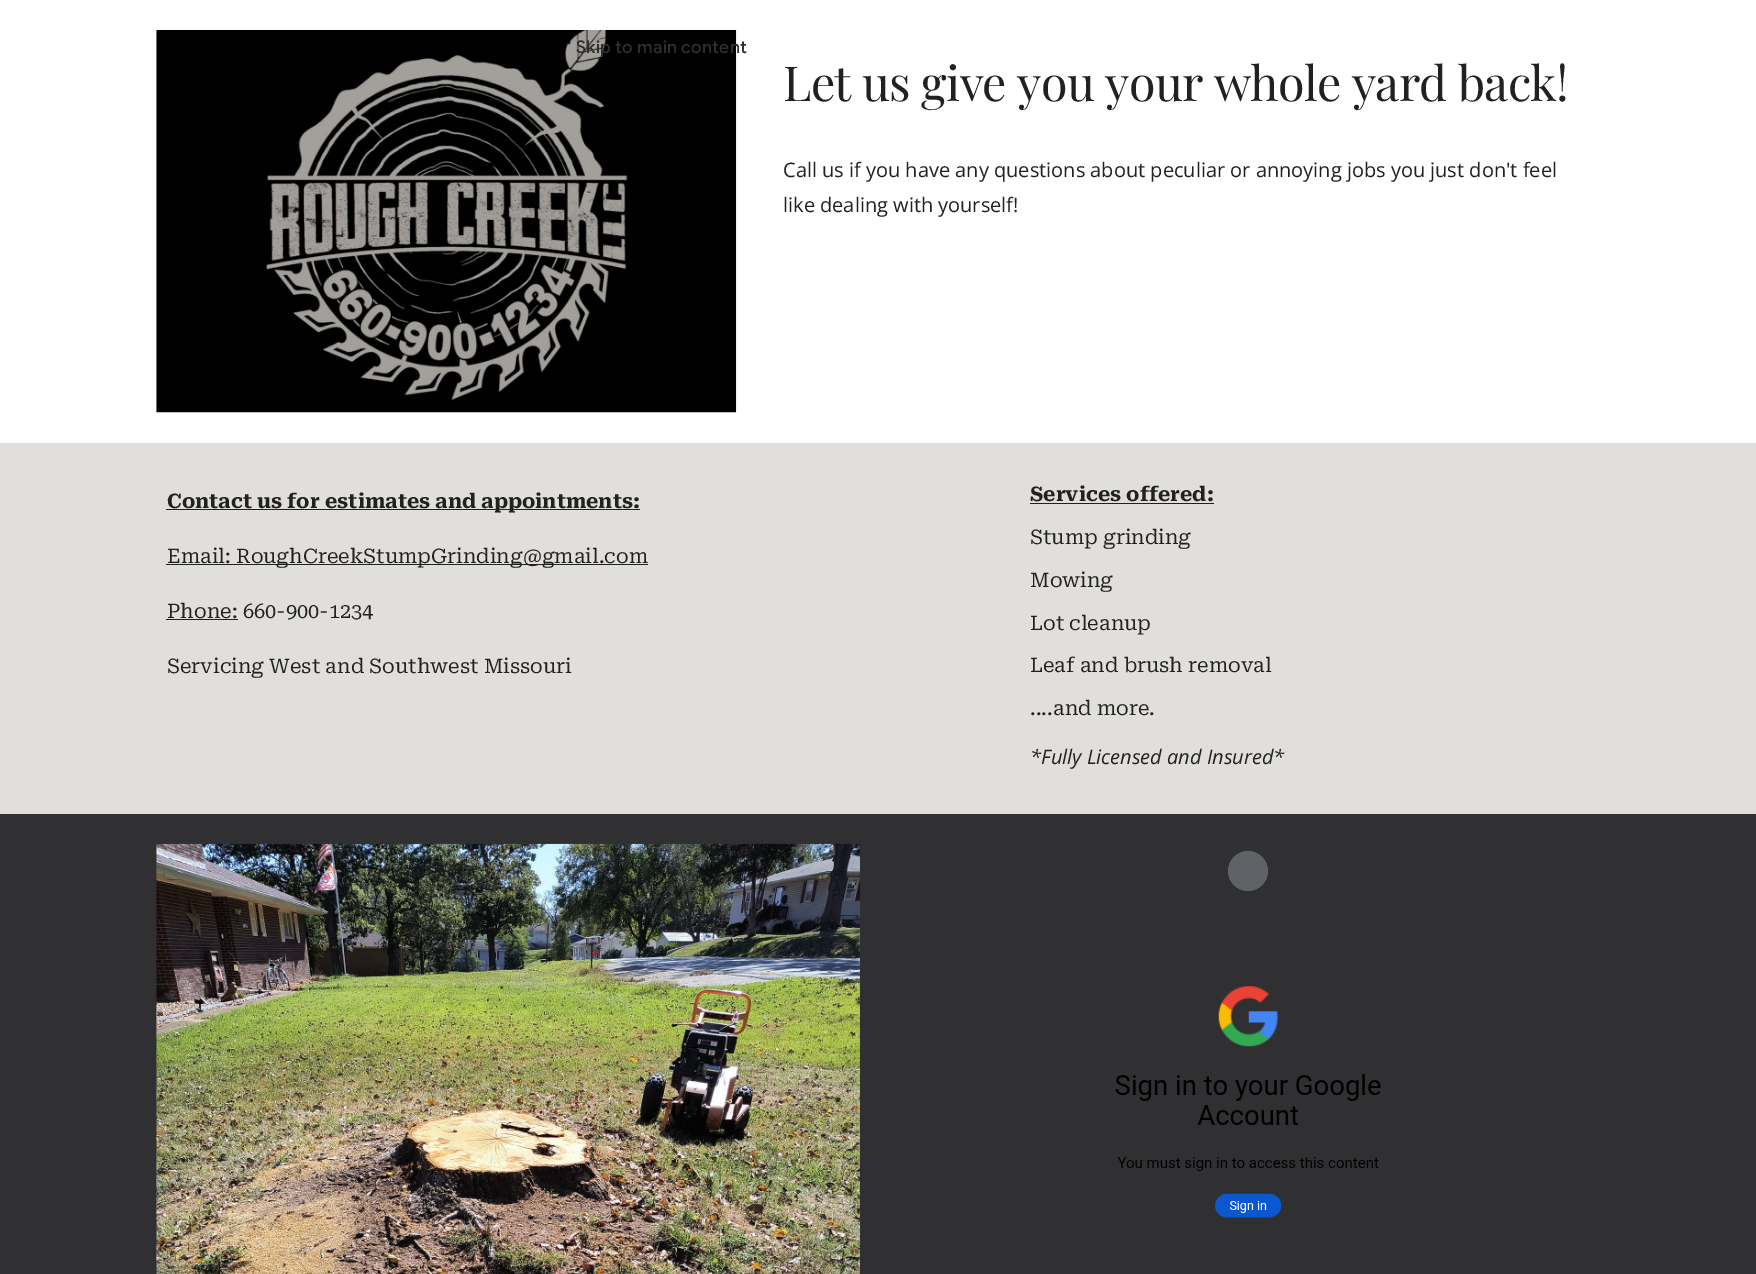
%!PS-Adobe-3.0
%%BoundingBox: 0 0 1756 1274
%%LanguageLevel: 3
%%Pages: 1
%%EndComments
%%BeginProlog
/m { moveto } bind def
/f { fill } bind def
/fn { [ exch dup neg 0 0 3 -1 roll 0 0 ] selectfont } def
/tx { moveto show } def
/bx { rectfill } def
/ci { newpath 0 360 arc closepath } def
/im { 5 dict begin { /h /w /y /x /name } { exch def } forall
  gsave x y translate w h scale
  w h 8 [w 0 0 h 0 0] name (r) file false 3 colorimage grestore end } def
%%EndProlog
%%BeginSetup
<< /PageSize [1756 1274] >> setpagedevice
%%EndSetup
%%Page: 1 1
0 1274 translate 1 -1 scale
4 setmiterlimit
1 setgray
0 0 1756 1274 bx
(image0.raw) 156 30 581 383 im
/GoogleSans-Medium 17.5 fn
0.184 0.18 0.18 setrgbcolor
576 53 m 0.2 0 (Skip to main content) ashow
/PlayfairDisplay-Regular 48.3 fn
0.129 setgray
783 101 m -0.75 0 (Let us give you your whole yard back!) ashow
/OpenSans-Regular 20 fn
(Call us if you have any questions about peculiar or annoying jobs you just don't feel) 783 177 tx
(like dealing with yourself!) 783 212 tx
0.882 0.875 0.859 setrgbcolor
0 443 1756 371 bx
0.129 setgray
166 509 474 1 bx
/RobotoSerif-Bold 20 fn
(Contact us for estimates and appointments:) 167 508 tx
166 564 482 1 bx
/RobotoSerif-Regular 20 fn
(Email: RoughCreekStumpGrinding@gmail.com) 167 563 tx
166 619 72 1 bx
(Phone: 660-900-1234) 167 618 tx
(Servicing West and Southwest Missouri) 167 673 tx
/RobotoSerif-Bold 20 fn
(Services offered:) 1030 501 tx
1030 503 184 1 bx
/RobotoSerif-Regular 20 fn
(Stump grinding) 1030 544 tx
(Mowing) 1030 587 tx
(Lot cleanup) 1030 630 tx
(Leaf and brush removal) 1030 672 tx
(....and more.) 1030 715 tx
/OpenSans-Italic 20 fn
(*Fully Licensed and Insured*) 1030 764 tx
0.188 0.188 0.2 setrgbcolor
0 814 1756 460 bx
(image1.raw) 156 843 704 431 im
0.373 0.388 0.408 setrgbcolor
1248 871 20 ci f
(image2.raw) 1115 986 266 232 im
showpage
%%EOF
